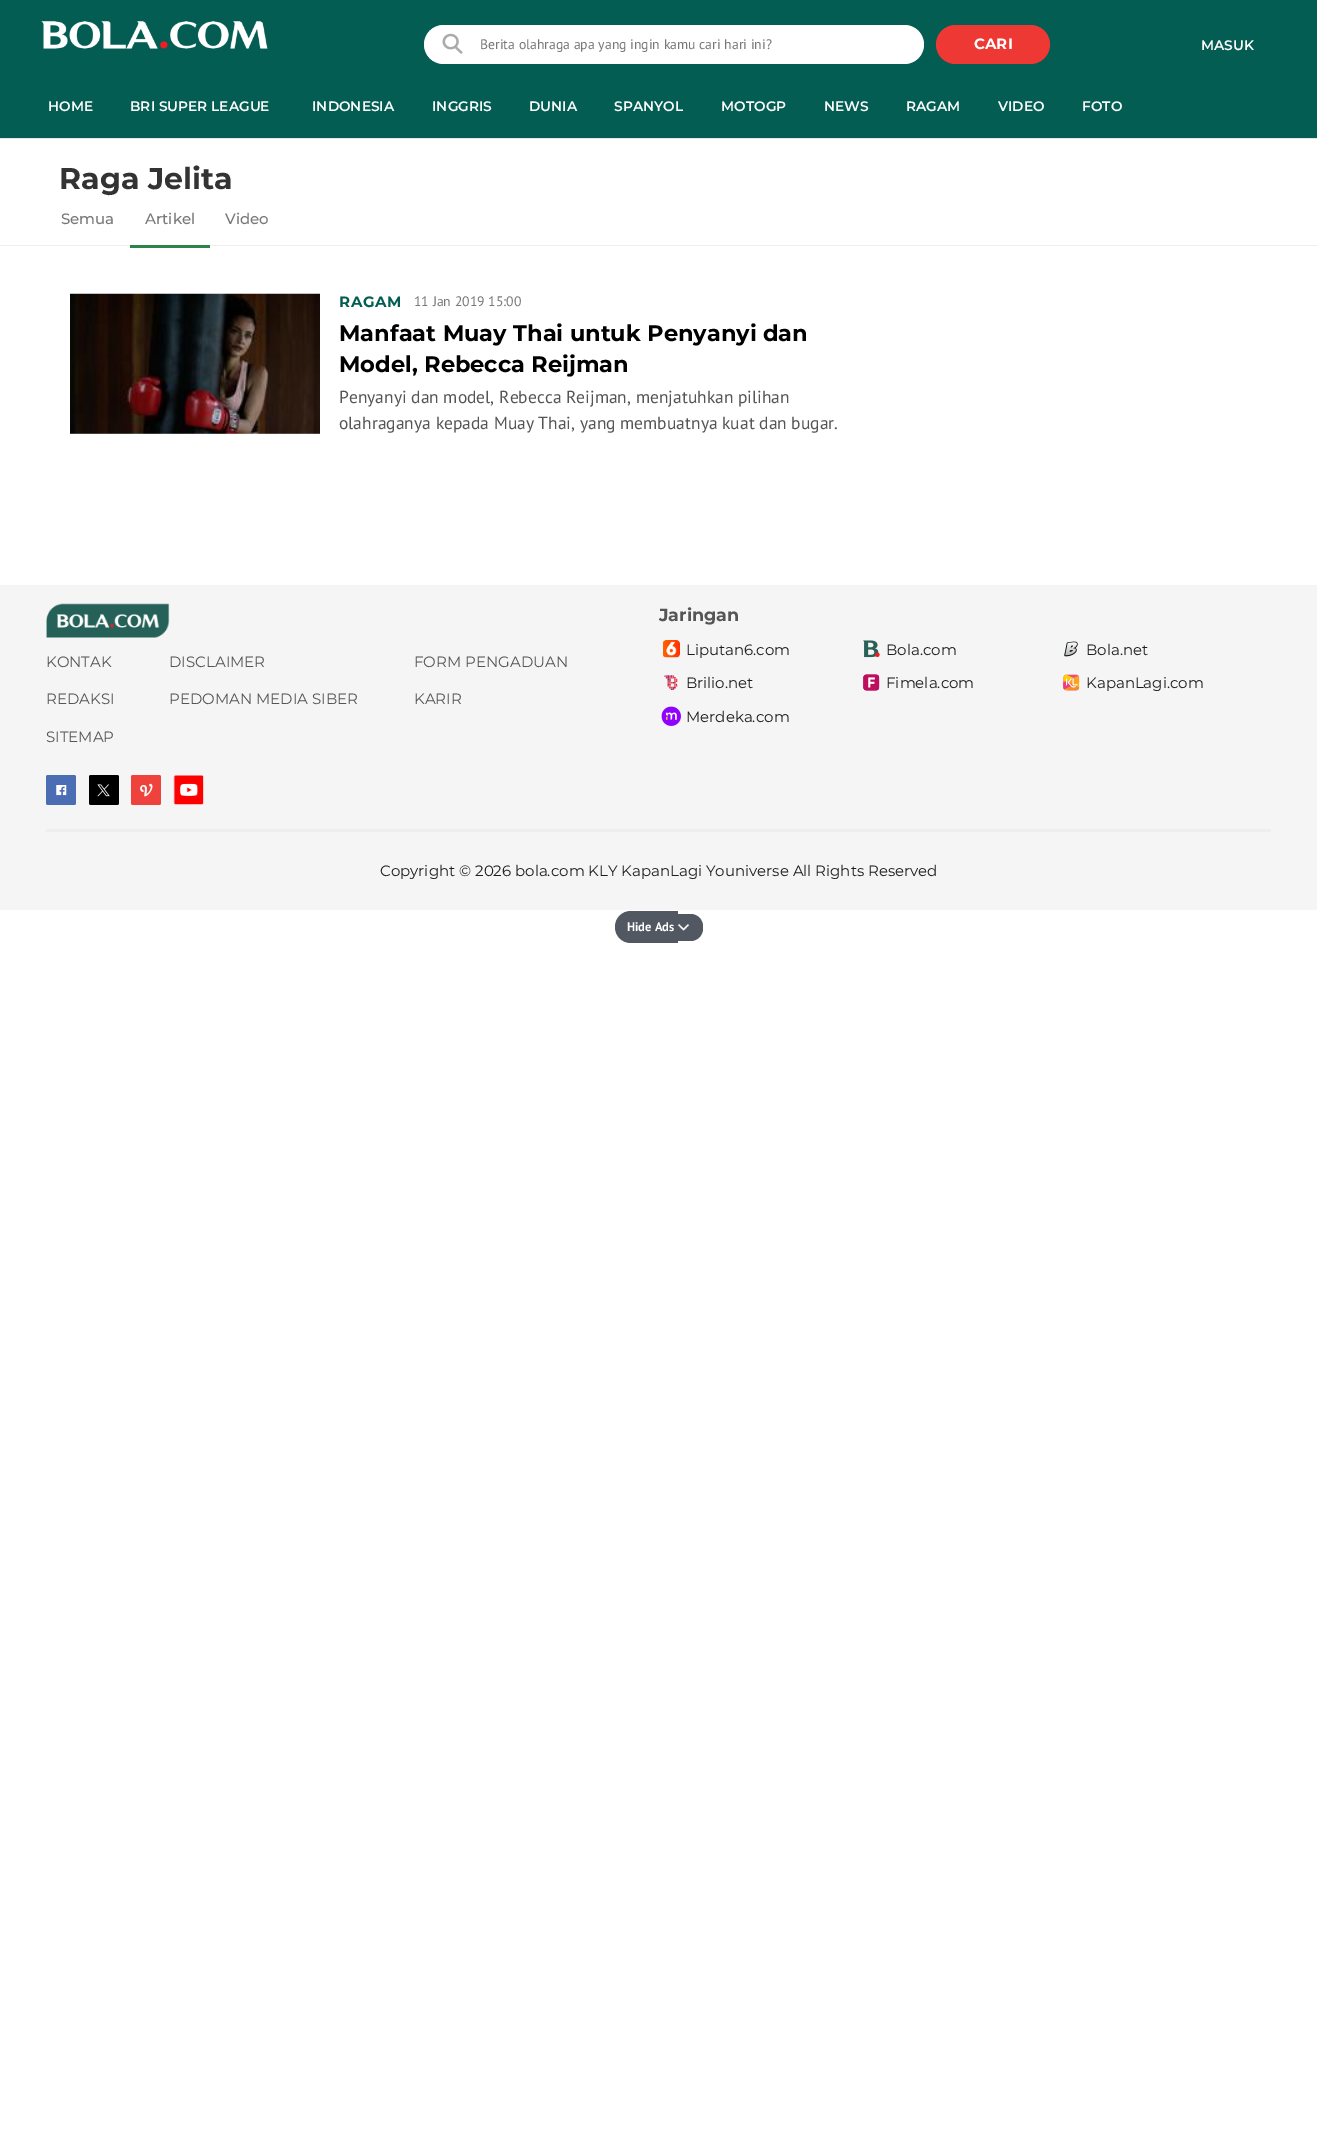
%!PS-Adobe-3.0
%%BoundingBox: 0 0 1317 2145
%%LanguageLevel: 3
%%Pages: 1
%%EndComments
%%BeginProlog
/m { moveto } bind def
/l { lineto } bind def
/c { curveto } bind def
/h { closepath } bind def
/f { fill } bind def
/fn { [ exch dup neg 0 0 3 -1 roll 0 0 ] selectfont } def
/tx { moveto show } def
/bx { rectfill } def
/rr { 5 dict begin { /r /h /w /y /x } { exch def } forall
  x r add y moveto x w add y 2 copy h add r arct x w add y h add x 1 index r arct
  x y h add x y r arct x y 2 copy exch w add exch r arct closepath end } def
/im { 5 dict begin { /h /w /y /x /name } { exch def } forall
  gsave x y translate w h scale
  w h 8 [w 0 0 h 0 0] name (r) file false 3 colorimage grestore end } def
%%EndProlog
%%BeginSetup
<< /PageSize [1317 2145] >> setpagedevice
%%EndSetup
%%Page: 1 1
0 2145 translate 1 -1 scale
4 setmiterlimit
1 setgray
0 0 1317 2145 bx
0.012 0.365 0.325 setrgbcolor
0 0 1317 138 bx
(image0.raw) 41 21 227 28 im
1 setgray
424 25 500 39 19.5 rr f
(image1.raw) 442 33 21 21 im
/PTSans-Regular 13.75 fn
0.467 setgray
(Berita olahraga apa yang ingin kamu cari hari ini?) 480 49 tx
0.929 0.22 0.2 setrgbcolor
936 25 114 39 19.5 rr f
/Montserrat-Bold 15 fn
1 setgray
(CARI) 974 49 tx
/Montserrat-SemiBold 13.75 fn
(MASUK) 1201 50 tx
0.902 setgray
0 138 m 0 139 l 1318 139 l 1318 76 l 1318 138 l h f
1 setgray
(HOME) 48 111 tx
(BRI SUPER LEAGUE) 130 111 tx
(INDONESIA) 312 111 tx
(INGGRIS) 432 111 tx
(DUNIA) 529 111 tx
(SPANYOL) 614 111 tx
(MOTOGP) 721 111 tx
(NEWS) 824 111 tx
(RAGAM) 906 111 tx
(VIDEO) 998 111 tx
(FOTO) 1082 111 tx
0.933 setgray
0 245 1317 1 bx
/Montserrat-Bold 30 fn
0.2 setgray
(Raga Jelita) 59 189 tx
/Montserrat-Medium 15 fn
0.467 setgray
(Semua) 61 224 tx
0.176 0.514 0.282 setrgbcolor
130 245 80 3 bx
0.467 setgray
(Artikel) 145 224 tx
(Video) 225 224 tx
(image2.raw) 70 293 250 141 im
/Montserrat-Bold 15 fn
0.012 0.365 0.325 setrgbcolor
339 307 m 0.5 0 (RAGAM) ashow
/PTSans-Regular 13.75 fn
0.467 setgray
(11 Jan 2019 15:00) 414 306 tx
/Montserrat-Bold 22.5 fn
0 setgray
(Manfaat Muay Thai untuk Penyanyi dan) 339 341 tx
(Model, Rebecca Reijman) 339 372 tx
/PTSans-Regular 17.5 fn
0.333 setgray
(Penyanyi dan model, Rebecca Reijman, menjatuhkan pilihan) 339 403 tx
(olahraganya kepada Muay Thai, yang membuatnya kuat dan bugar.) 339 429 tx
0.961 setgray
0 585 1317 325 bx
0.933 setgray
46 829 1225 3 bx
(image3.raw) 46 603 124 35 im
/Montserrat-Regular 15 fn
0.333 setgray
(KONTAK) 46 667 tx
(DISCLAIMER) 169 667 tx
(FORM PENGADUAN) 414 667 tx
(REDAKSI) 46 704 tx
(PEDOMAN MEDIA SIBER) 169 704 tx
(KARIR) 414 704 tx
(SITEMAP) 46 742 tx
(image4.raw) 46 775 30 30 im
(image5.raw) 89 775 30 30 im
(image6.raw) 131 775 30 30 im
(image7.raw) 173 775 31 30 im
/Montserrat-Bold 17.5 fn
(Jaringan) 659 621 tx
(image8.raw) 663 640 17 18 im
/Montserrat-Regular 15 fn
0.118 setgray
(Liputan6.com) 686 655 tx
(image9.raw) 863 640 17 18 im
(Bola.com) 886 655 tx
(image10.raw) 1064 641 14 16 im
(Bola.net) 1086 655 tx
(image11.raw) 664 675 14 15 im
(Brilio.net) 686 688 tx
(image12.raw) 863 674 17 17 im
(Fimela.com) 886 688 tx
(image13.raw) 1063 674 17 17 im
(KapanLagi.com) 1086 688 tx
(image14.raw) 661 706 20 20 im
(Merdeka.com) 686 722 tx
(Copyright © 2026 bola.com KLY KapanLagi Youniverse All Rights Reserved) 380 876 tx
0.322 0.345 0.38 setrgbcolor
631 911 m 678 911 l 678 943 l 631 943 l 622 943 615 936 615 927 c 615 918 622 911 631 911 c h f
/PTSans-Bold 12.5 fn
1 setgray
(Hide Ads) 627 931 tx
0.322 0.345 0.38 setrgbcolor
678 914 m 690.5 914 l 697.5 914 703 919.5 703 926.5 c 703 928.5 l 703 935.5 697.5 941 690.5 941 c 678 941 l h f
(image15.raw) 677 923 13 8 im
showpage
%%EOF
